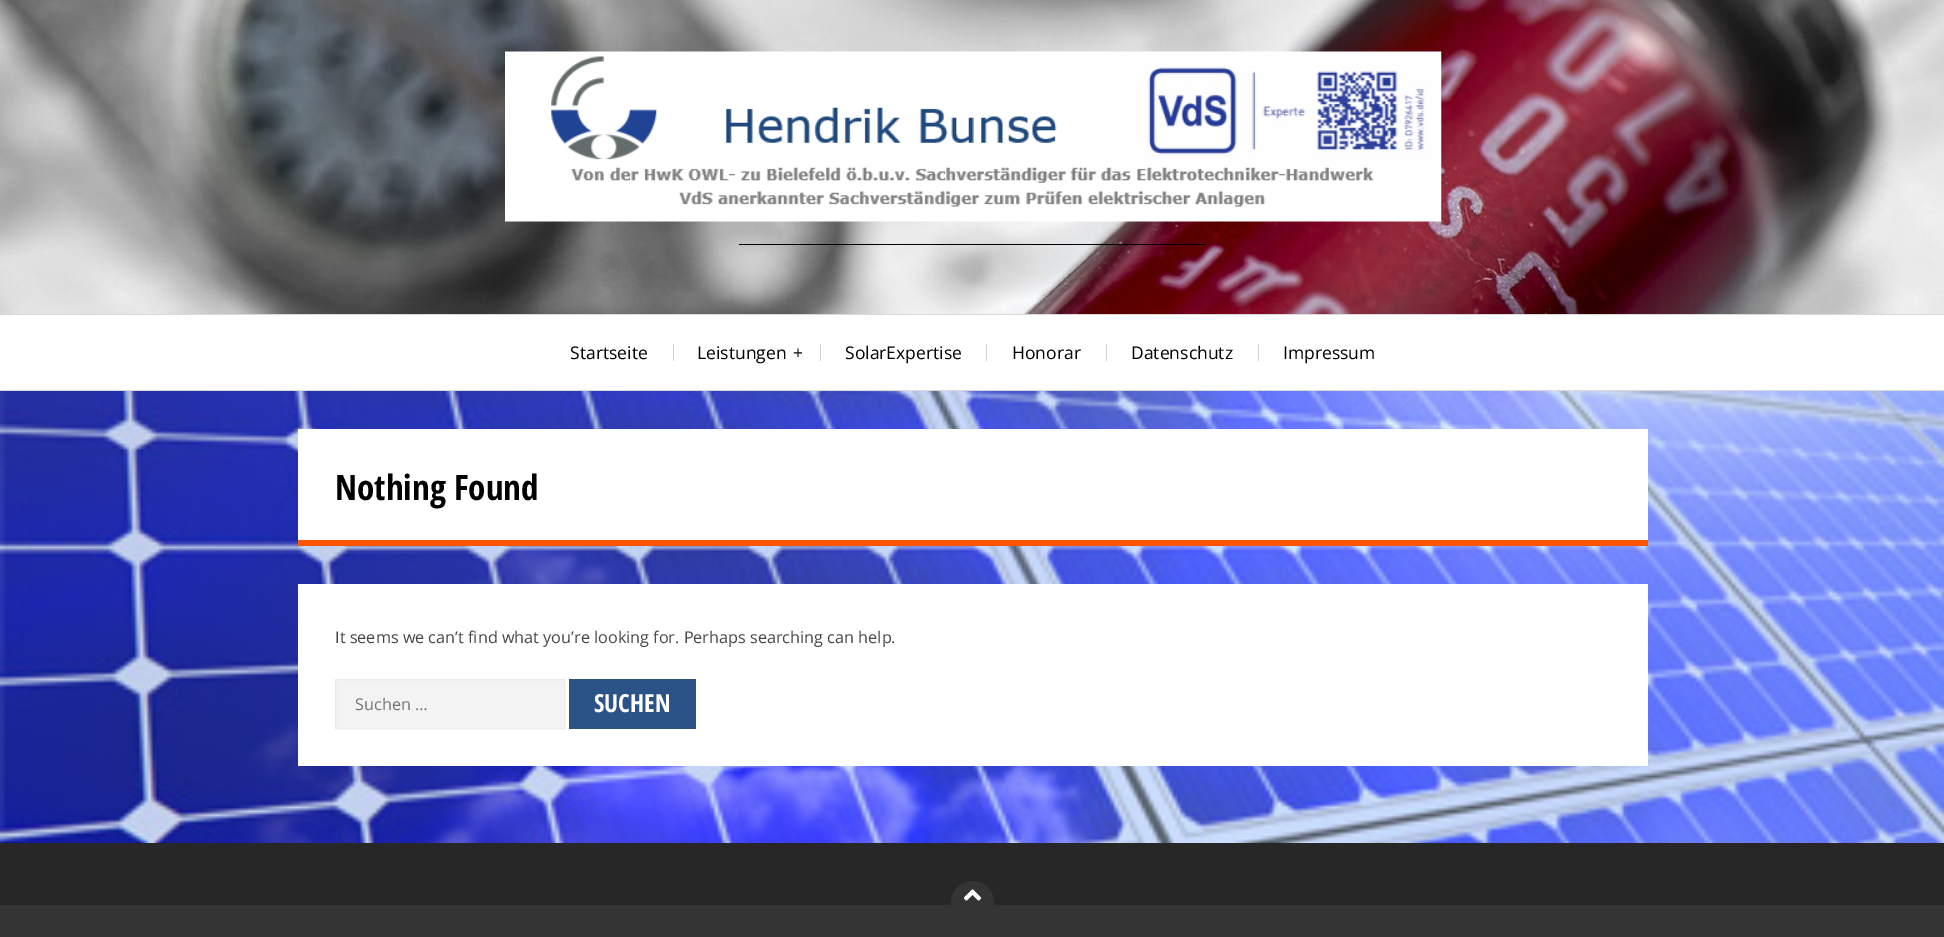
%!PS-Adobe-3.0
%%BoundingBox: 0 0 1944 937
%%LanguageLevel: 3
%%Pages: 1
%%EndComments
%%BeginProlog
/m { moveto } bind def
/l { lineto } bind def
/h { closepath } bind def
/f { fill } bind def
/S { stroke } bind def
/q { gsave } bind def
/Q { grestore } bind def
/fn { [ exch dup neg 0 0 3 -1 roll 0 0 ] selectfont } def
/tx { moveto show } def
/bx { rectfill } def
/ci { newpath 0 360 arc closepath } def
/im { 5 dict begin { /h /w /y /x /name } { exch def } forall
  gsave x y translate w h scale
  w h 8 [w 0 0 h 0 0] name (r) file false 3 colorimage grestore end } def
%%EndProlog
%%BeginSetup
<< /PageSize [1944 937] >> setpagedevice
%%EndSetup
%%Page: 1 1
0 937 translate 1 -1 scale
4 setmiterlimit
1 setgray
0 0 1944 937 bx
(image0.raw) 0 391 1944 452 im
(image1.raw) 0 0 1944 314 im
(image2.raw) 505 51 937 171 im
0 setgray
739 244 467 1 bx
0.851 setgray
0 314 1944 1 bx
0 390 1944 1 bx
/OpenSans-Regular 17.5 fn
0 setgray
(Startseite) 570 359 tx
0.827 setgray
673 344 1 17 bx
0 setgray
(Leistungen) 697 359 tx
(+) 793 359 tx
0.827 setgray
820 344 1 17 bx
0 setgray
(SolarExpertise) 845 359 tx
0.827 setgray
986 344 1 17 bx
0 setgray
(Honorar) 1012 359 tx
0.827 setgray
1106 344 1 17 bx
0 setgray
(Datenschutz) 1131 359 tx
0.827 setgray
1258 344 1 17 bx
0 setgray
(Impressum) 1283 359 tx
1 setgray
298 429 1350 111 bx
1 0.329 0 setrgbcolor
298 540 1350 6 bx
/OpenSansCondensed-Bold 35 fn
0 setgray
(Nothing Found) 335 500 tx
1 setgray
298 584 1350 182 bx
/OpenSans-Regular 16.25 fn
0.278 setgray
(It seems we can’t find what you’re looking for. Perhaps searching can help.) 335 643 tx
0.953 setgray
335.5 679.5 m 564.5 679.5 l 564.5 728.5 l 335.5 728.5 l h q f Q
0.922 setgray
S
0.459 setgray
(Suchen …) 355 710 tx
0.169 0.325 0.529 setrgbcolor
569 679 127 50 bx
/OpenSansCondensed-Bold 25 fn
1 setgray
(SUCHEN) 594 712 tx
0.204 setgray
0 905 1944 32 bx
0.153 setgray
0 843 1944 62 bx
0.204 setgray
972.5 902.5 21.5 ci f
(image3.raw) 963 889 19 12 im
showpage
%%EOF
